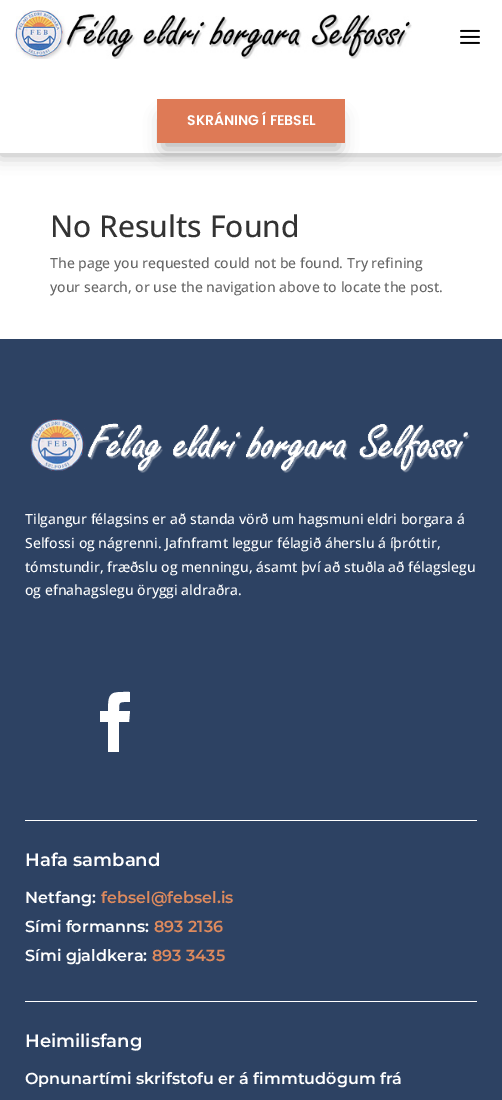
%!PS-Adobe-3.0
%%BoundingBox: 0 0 502 1100
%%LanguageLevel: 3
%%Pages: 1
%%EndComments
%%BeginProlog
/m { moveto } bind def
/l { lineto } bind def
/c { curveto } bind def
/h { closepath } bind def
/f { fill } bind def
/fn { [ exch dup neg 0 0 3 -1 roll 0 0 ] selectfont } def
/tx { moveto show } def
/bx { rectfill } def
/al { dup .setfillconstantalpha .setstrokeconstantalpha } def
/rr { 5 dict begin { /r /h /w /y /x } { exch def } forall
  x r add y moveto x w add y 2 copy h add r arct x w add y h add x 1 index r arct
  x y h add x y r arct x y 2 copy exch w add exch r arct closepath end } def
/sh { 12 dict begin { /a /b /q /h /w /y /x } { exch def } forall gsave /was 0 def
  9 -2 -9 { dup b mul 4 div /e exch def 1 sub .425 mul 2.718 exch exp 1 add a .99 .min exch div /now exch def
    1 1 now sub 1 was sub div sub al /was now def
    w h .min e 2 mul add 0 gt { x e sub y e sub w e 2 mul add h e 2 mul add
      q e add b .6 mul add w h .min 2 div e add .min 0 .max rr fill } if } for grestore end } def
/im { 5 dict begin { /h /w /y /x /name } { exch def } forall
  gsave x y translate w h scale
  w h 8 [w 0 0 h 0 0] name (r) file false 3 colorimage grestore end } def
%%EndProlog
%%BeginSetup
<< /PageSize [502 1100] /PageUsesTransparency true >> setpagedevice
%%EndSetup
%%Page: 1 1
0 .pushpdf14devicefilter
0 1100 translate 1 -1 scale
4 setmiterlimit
1 setgray
0 0 502 1100 bx
0 setgray
0 2 502 153 0 9 0.3 sh
1 setgray
0 0 502 153 bx
(image0.raw) 14 10 398 49 im
(image1.raw) 460 29 20 15 im
0 setgray
163 117 176 32 0 9 0.3 sh
0.871 0.478 0.337 setrgbcolor
157 99 188 44 bx
/Poppins-SemiBold 14 fn
1 setgray
(SKRÁNING Í FEBSEL) 187 125 tx
/OpenSans-Medium 30 fn
0.2 setgray
(No Results Found) 50 237 tx
/OpenSans-Medium 14 fn
0.4 setgray
(The page you requested could not be found. Try refining) 50 268 tx
(your search, or use the navigation above to locate the post.) 50 292 tx
0.176 0.259 0.388 setrgbcolor
0 339 502 761 bx
(image2.raw) 30 419 440 54 im
1 setgray
(Tilgangur félagsins er að standa vörð um hagsmuni eldri borgara á) 25 524 tx
(Selfossi og nágrenni. Jafnframt leggur félagið áherslu á íþróttir,) 25 548 tx
(tómstundir, fræðslu og menningu, ásamt því að stuðla að félagslegu) 25 572 tx
(og efnahagslegu öryggi aldraðra.) 25 595 tx
108 752 m 119 752 l 119 722 l 129 722 l 130 711 l 119 711 l 119 701 119 702 130 702 c 130 692 l 111 692 108 691 108 711 c 100 711 l 100 722 l 108 722 l h f
25 820 452 1 bx
/Montserrat-SemiBold 18 fn
(Hafa samband) 25 866 tx
/Montserrat-SemiBold 16 fn
(Netfang:) 25 903 tx
0.871 0.541 0.365 setrgbcolor
(febsel@febsel.is) 101 903 tx
1 setgray
(Sími formanns:) 25 932 tx
0.871 0.541 0.365 setrgbcolor
(893 2136) 154 932 tx
1 setgray
(Sími gjaldkera:) 25 961 tx
0.871 0.541 0.365 setrgbcolor
(893 3435) 152 961 tx
1 setgray
25 1001 452 1 bx
/Montserrat-SemiBold 18 fn
(Heimilisfang) 25 1047 tx
/Montserrat-SemiBold 16 fn
(Opnunartími skrifstofu er á fimmtudögum frá) 25 1084 tx
.poppdf14devicefilter showpage
%%EOF
